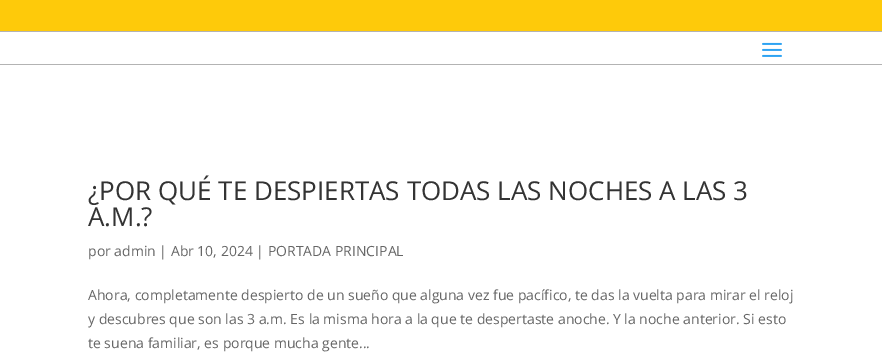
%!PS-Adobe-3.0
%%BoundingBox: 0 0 882 352
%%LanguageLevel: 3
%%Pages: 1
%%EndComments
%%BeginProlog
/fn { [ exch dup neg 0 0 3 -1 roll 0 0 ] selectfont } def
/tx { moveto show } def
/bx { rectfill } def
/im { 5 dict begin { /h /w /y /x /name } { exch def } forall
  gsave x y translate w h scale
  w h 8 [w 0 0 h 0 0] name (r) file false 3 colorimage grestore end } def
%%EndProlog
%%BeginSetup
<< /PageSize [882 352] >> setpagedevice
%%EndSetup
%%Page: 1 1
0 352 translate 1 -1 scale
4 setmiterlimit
1 setgray
0 0 882 352 bx
0.996 0.792 0.039 setrgbcolor
0 0 882 31 bx
0.702 setgray
0 31 882 1 bx
0 64 882 1 bx
(image0.raw) 762 42 20 15 im
/OpenSans-Regular 26 fn
0.2 setgray
(¿POR QUÉ TE DESPIERTAS TODAS LAS NOCHES A LAS 3) 88 200 tx
(A.M.?) 88 226 tx
/OpenSans-Regular 14 fn
0.4 setgray
(por admin | Abr 10, 2024 | PORTADA PRINCIPAL) 88 256 tx
(Ahora, completamente despierto de un sueño que alguna vez fue pacífico, te das la vuelta para mirar el reloj) 88 300 tx
(y descubres que son las 3 a.m. Es la misma hora a la que te despertaste anoche. Y la noche anterior. Si esto) 88 324 tx
(te suena familiar, es porque mucha gente...) 88 348 tx
showpage
%%EOF
